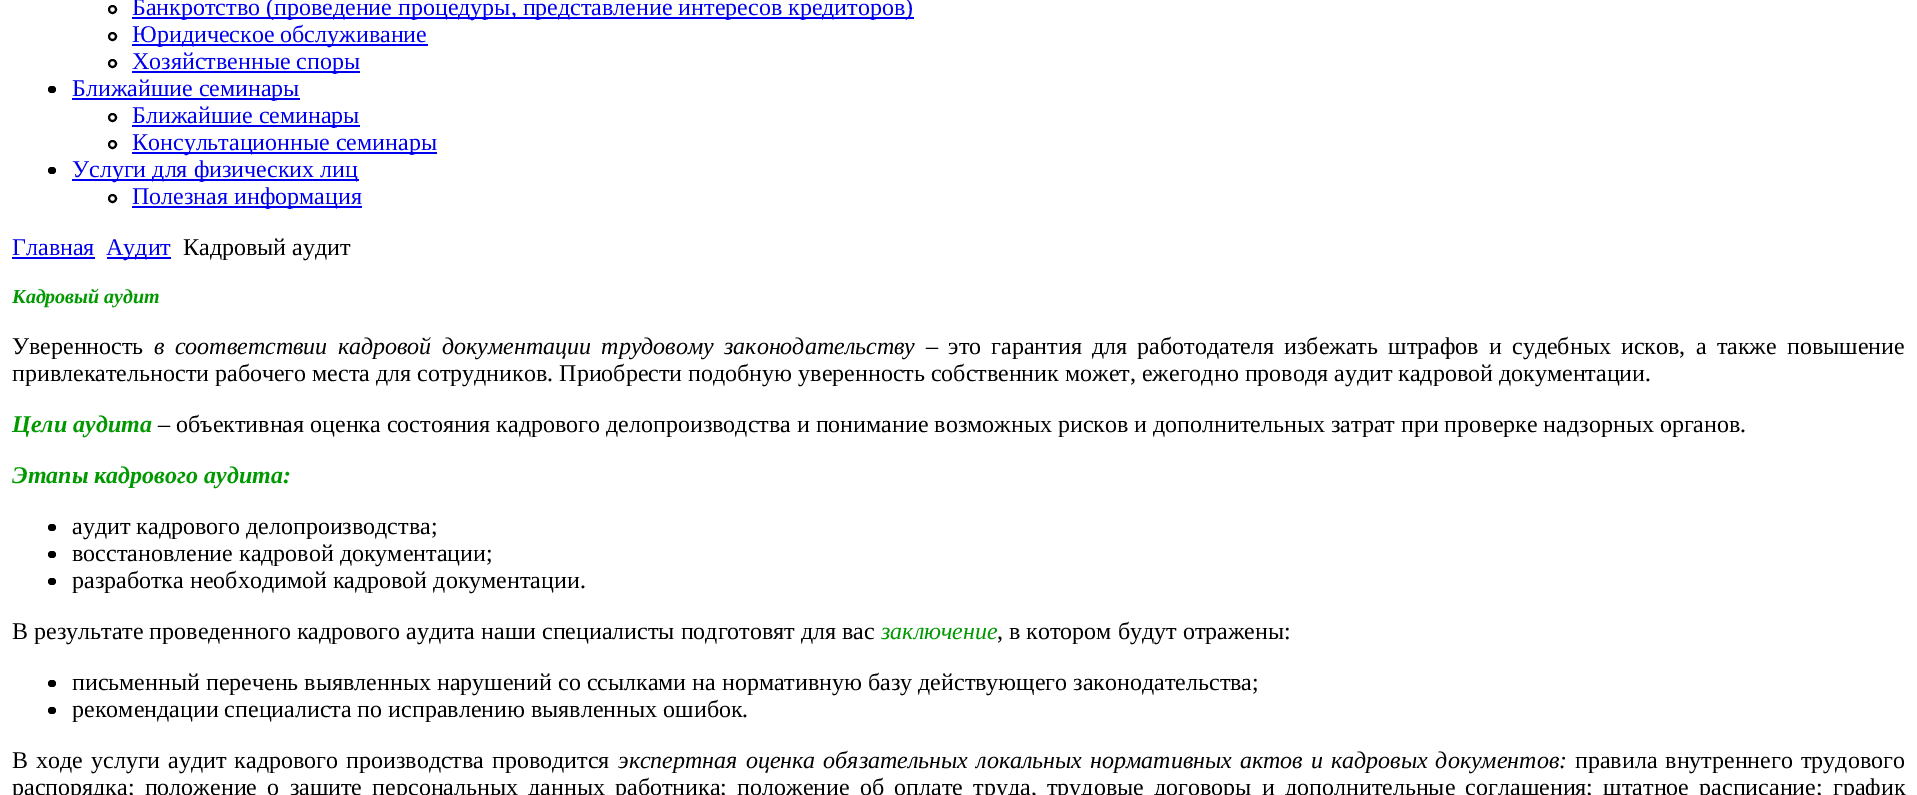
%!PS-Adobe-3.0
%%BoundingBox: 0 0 1917 795
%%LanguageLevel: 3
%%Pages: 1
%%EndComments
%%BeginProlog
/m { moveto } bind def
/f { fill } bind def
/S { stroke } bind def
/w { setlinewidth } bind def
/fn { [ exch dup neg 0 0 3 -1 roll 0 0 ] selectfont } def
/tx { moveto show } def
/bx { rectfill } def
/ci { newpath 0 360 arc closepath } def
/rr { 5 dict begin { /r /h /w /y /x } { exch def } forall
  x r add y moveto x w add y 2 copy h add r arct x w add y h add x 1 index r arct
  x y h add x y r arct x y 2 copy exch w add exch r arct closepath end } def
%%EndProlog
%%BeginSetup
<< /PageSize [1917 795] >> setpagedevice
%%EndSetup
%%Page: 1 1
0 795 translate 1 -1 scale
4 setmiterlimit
1 setgray
0 0 1917 795 bx
0 setgray
2 w
112.5 9.5 3.5 ci S
0 0 0.933 setrgbcolor
132 17 782 2 bx
/LiberationSerif-Regular 24 fn
(Банкротство \(проведение процедуры, представление интересов кредиторов\)) 132 15 tx
0 setgray
112.5 36.5 3.5 ci S
0 0 0.933 setrgbcolor
132 44 296 2 bx
(Юридическое обслуживание) 132 42 tx
0 setgray
112.5 63.5 3.5 ci S
0 0 0.933 setrgbcolor
132 71 228 2 bx
(Хозяйственные споры) 132 69 tx
0 setgray
48 86 8 7 3.5 rr f
0 0 0.933 setrgbcolor
72 98 228 2 bx
(Ближайшие семинары) 72 96 tx
0 setgray
112.5 117.5 3.5 ci S
0 0 0.933 setrgbcolor
132 125 228 2 bx
(Ближайшие семинары) 132 123 tx
0 setgray
112.5 144.5 3.5 ci S
0 0 0.933 setrgbcolor
132 152 305 2 bx
(Консультационные семинары) 132 150 tx
0 setgray
48 167 8 7 3.5 rr f
0 0 0.933 setrgbcolor
72 179 287 2 bx
(Услуги для физических лиц) 72 177 tx
0 setgray
112.5 198.5 3.5 ci S
0 0 0.933 setrgbcolor
132 206 230 2 bx
(Полезная информация) 132 204 tx
(Главная) 12 255 tx
12 257 83 2 bx
107 257 64 2 bx
(Аудит) 106 255 tx
0 setgray
(Кадровый аудит) 183 255 tx
/LiberationSerif-BoldItalic 20 fn
0 0.6 0 setrgbcolor
(Кадровый аудит) 12 303 tx
/LiberationSerif-Regular 24 fn
0 setgray
(Уверенность) 12 354 tx
/LiberationSerif-Italic 24 fn
154 354 m 4.25 0 32 (в соответствии кадровой документации трудовому законодательству) widthshow
/LiberationSerif-Regular 24 fn
926 354 m 4.25 0 32 (– это гарантия для работодателя избежать штрафов и судебных исков, а также повышение) widthshow
(привлекательности рабочего места для сотрудников. Приобрести подобную уверенность собственник может, ежегодно проводя аудит кадровой документации.) 12 381 tx
/LiberationSerif-BoldItalic 24 fn
0 0.6 0 setrgbcolor
(Цели аудита) 12 432 tx
/LiberationSerif-Regular 24 fn
0 setgray
(– объективная оценка состояния кадрового делопроизводства и понимание возможных рисков и дополнительных затрат при проверке надзорных органов.) 158 432 tx
/LiberationSerif-BoldItalic 24 fn
0 0.6 0 setrgbcolor
(Этапы кадрового аудита:) 12 483 tx
0 setgray
48 524 8 7 3.5 rr f
/LiberationSerif-Regular 24 fn
(аудит кадрового делопроизводства;) 72 534 tx
48 551 8 7 3.5 rr f
(восстановление кадровой документации;) 72 561 tx
48 578 8 7 3.5 rr f
(разработка необходимой кадровой документации.) 72 588 tx
(В результате проведенного кадрового аудита наши специалисты подготовят для вас) 12 639 tx
/LiberationSerif-Italic 24 fn
0 0.6 0 setrgbcolor
(заключение) 881 639 tx
/LiberationSerif-Regular 24 fn
0 setgray
(, в котором будут отражены:) 997 639 tx
48 680 8 7 3.5 rr f
(письменный перечень выявленных нарушений со ссылками на нормативную базу действующего законодательства;) 72 690 tx
48 707 8 7 3.5 rr f
(рекомендации специалиста по исправлению выявленных ошибок.) 72 717 tx
12 768 m 2 0 32 (В ходе услуги аудит кадрового производства проводится) widthshow
/LiberationSerif-Italic 24 fn
618 768 m 2 0 32 (экспертная оценка обязательных локальных нормативных актов и кадровых документов:) widthshow
/LiberationSerif-Regular 24 fn
1575 768 m 2 0 32 (правила внутреннего трудового) widthshow
12 795 m 4.25 0 32 (распорядка; положение о защите персональных данных работника; положение об оплате труда, трудовые договоры и дополнительные соглашения; штатное расписание; график) widthshow
showpage
%%EOF
